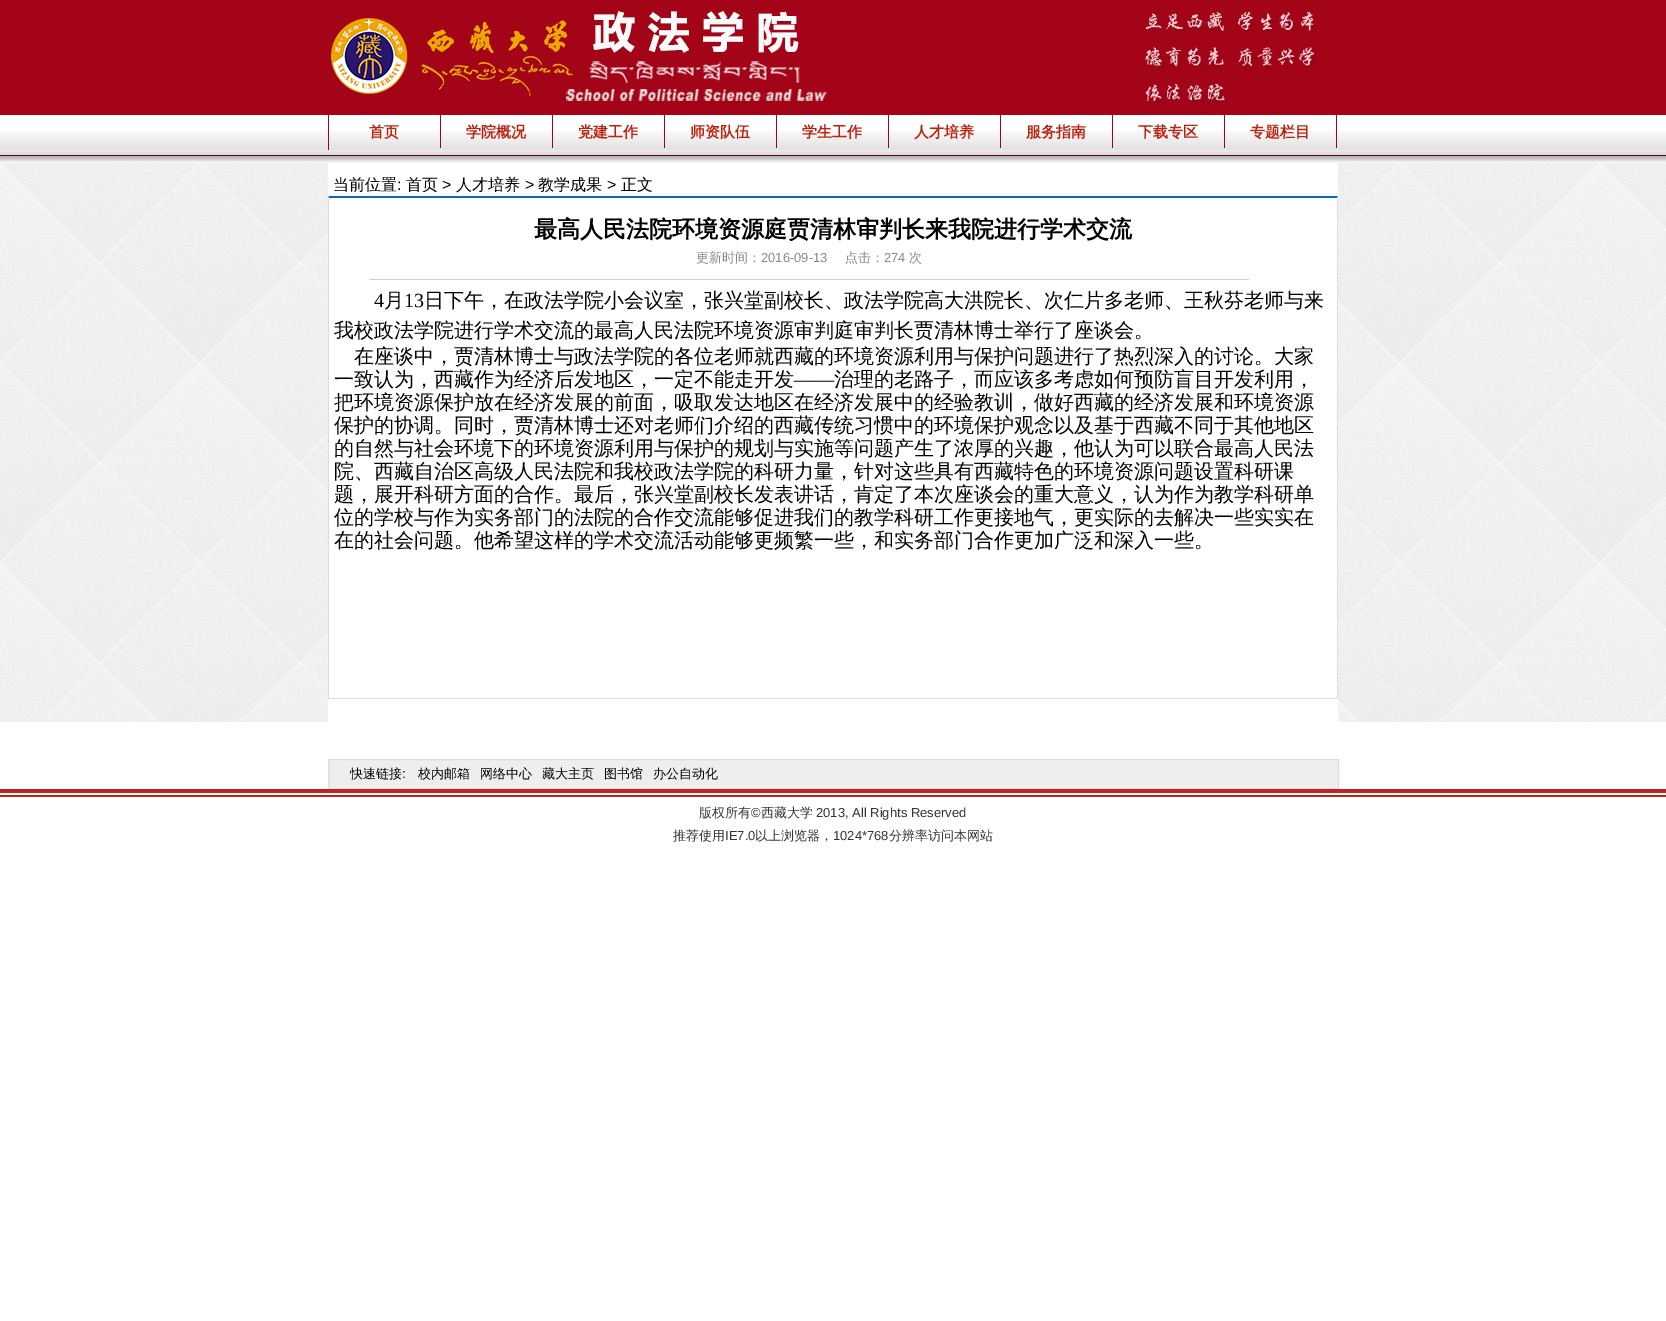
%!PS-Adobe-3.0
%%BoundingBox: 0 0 1666 1321
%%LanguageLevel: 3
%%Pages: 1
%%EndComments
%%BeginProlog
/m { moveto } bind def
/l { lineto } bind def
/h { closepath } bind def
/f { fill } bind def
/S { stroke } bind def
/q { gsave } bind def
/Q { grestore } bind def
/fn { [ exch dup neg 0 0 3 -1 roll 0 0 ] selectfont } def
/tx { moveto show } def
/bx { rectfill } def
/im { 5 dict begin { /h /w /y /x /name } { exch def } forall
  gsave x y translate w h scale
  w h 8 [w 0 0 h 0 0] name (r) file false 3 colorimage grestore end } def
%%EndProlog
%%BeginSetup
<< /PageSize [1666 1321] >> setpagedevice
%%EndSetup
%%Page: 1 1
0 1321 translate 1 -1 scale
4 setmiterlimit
1 setgray
0 0 1666 1321 bx
0.639 0.016 0.094 setrgbcolor
0 0 1666 115 bx
(image0.raw) 345 10 973 94 im
(image1.raw) 331 10 496 86 im
(image2.raw) 0 131 1666 19 im
328 115 1 35 bx
440 115 1 33 bx
/WenQuanYiZenHei-Bold 15 fn
0.741 0.129 0.051 setrgbcolor
(首页) 369 137 tx
0.639 0.016 0.094 setrgbcolor
552 115 1 33 bx
0.741 0.129 0.051 setrgbcolor
(学院概况) 466 137 tx
0.639 0.016 0.094 setrgbcolor
664 115 1 33 bx
0.741 0.129 0.051 setrgbcolor
(党建工作) 578 137 tx
0.639 0.016 0.094 setrgbcolor
776 115 1 33 bx
0.741 0.129 0.051 setrgbcolor
(师资队伍) 690 137 tx
0.639 0.016 0.094 setrgbcolor
888 115 1 33 bx
0.741 0.129 0.051 setrgbcolor
(学生工作) 802 137 tx
0.639 0.016 0.094 setrgbcolor
1000 115 1 33 bx
0.741 0.129 0.051 setrgbcolor
(人才培养) 914 137 tx
0.639 0.016 0.094 setrgbcolor
1112 115 1 33 bx
0.741 0.129 0.051 setrgbcolor
(服务指南) 1026 137 tx
0.639 0.016 0.094 setrgbcolor
1224 115 1 33 bx
0.741 0.129 0.051 setrgbcolor
(下载专区) 1138 137 tx
0.639 0.016 0.094 setrgbcolor
1336 115 1 33 bx
0.741 0.129 0.051 setrgbcolor
(专题栏目) 1250 137 tx
(image3.raw) 0 150 1666 13 im
(image4.raw) 0 163 1666 559 im
1 setgray
328 163 1010 559 bx
/WenQuanYiZenHei-Medium 16 fn
0 setgray
(当前位置) 333 190 tx
/LiberationSans-Regular 16 fn
(:) 397 190 tx
/WenQuanYiZenHei-Medium 16 fn
(首页) 406 190 tx
/LiberationSans-Regular 16 fn
(>) 442 190 tx
/WenQuanYiZenHei-Medium 16 fn
(人才培养) 456 190 tx
/LiberationSans-Regular 16 fn
(>) 525 190 tx
/WenQuanYiZenHei-Medium 16 fn
(教学成果) 538 190 tx
/LiberationSans-Regular 16 fn
(>) 607 190 tx
/WenQuanYiZenHei-Medium 16 fn
(正文) 621 190 tx
0.008 0.435 0.733 setrgbcolor
328 196 m 1338 196 l 1337 198 l 329 198 l h f
0.867 setgray
1338 196 m 1338 699 l 1337 698 l 1337 198 l h f
328 698 1010 1 bx
328 699 m 328 196 l 329 198 l 329 698 l h f
/WenQuanYiZenHei-Bold 23 fn
0 setgray
(最高人民法院环境资源庭贾清林审判长来我院进行学术交流) 534 237 tx
0.816 setgray
369 279 880 1 bx
/WenQuanYiZenHei-Medium 13 fn
0.533 setgray
(更新时间：) 696 262 tx
/LiberationSans-Regular 13 fn
(2016-09-13) 761 262 tx
/WenQuanYiZenHei-Medium 13 fn
(点击：) 845 262 tx
/LiberationSans-Regular 13 fn
(274) 884 262 tx
/WenQuanYiZenHei-Medium 13 fn
(次) 909 262 tx
/LiberationSerif-Regular 20 fn
0 setgray
(4) 374 307 tx
/WenQuanYiZenHei-Medium 20 fn
(月) 384 307 tx
/LiberationSerif-Regular 20 fn
(13) 404 307 tx
/WenQuanYiZenHei-Medium 20 fn
(日下午，在政法学院小会议室，张兴堂副校长、政法学院高大洪院长、次仁片多老师、王秋芬老师与来) 424 307 tx
(我校政法学院进行学术交流的最高人民法院环境资源审判庭审判长贾清林博士举行了座谈会。) 334 337 tx
(在座谈中，贾清林博士与政法学院的各位老师就西藏的环境资源利用与保护问题进行了热烈深入的讨论。大家) 354 363 tx
(一致认为，西藏作为经济后发地区，一定不能走开发) 334 386 tx
/LiberationSerif-Regular 20 fn
(——) 794 386 tx
/WenQuanYiZenHei-Medium 20 fn
(治理的老路子，而应该多考虑如何预防盲目开发利用，) 834 386 tx
(把环境资源保护放在经济发展的前面，吸取发达地区在经济发展中的经验教训，做好西藏的经济发展和环境资源) 334 409 tx
(保护的协调。同时，贾清林博士还对老师们介绍的西藏传统习惯中的环境保护观念以及基于西藏不同于其他地区) 334 432 tx
(的自然与社会环境下的环境资源利用与保护的规划与实施等问题产生了浓厚的兴趣，他认为可以联合最高人民法) 334 455 tx
(院、西藏自治区高级人民法院和我校政法学院的科研力量，针对这些具有西藏特色的环境资源问题设置科研课) 334 478 tx
(题，展开科研方面的合作。最后，张兴堂副校长发表讲话，肯定了本次座谈会的重大意义，认为作为教学科研单) 334 501 tx
(位的学校与作为实务部门的法院的合作交流能够促进我们的教学科研工作更接地气，更实际的去解决一些实实在) 334 524 tx
(在的社会问题。他希望这样的学术交流活动能够更频繁一些，和实务部门合作更加广泛和深入一些。) 334 547 tx
0.933 setgray
328.5 759.5 m 1338.5 759.5 l 1338.5 788.5 l 328.5 788.5 l h q f Q
0.867 setgray
S
/WenQuanYiZenHei-Medium 13 fn
0 setgray
(快速链接) 350 778 tx
/LiberationSans-Regular 13 fn
(:) 402 778 tx
/WenQuanYiZenHei-Medium 13 fn
(校内邮箱) 418 778 tx
(网络中心) 480 778 tx
(藏大主页) 542 778 tx
(图书馆) 604 778 tx
(办公自动化) 653 778 tx
0.737 0.145 0.11 setrgbcolor
0 789 1666 4 bx
0 795 1666 2 bx
0.2 setgray
(版权所有) 699 817 tx
/LiberationSans-Regular 13 fn
(©) 751 817 tx
/WenQuanYiZenHei-Medium 13 fn
(西藏大学) 761 817 tx
/LiberationSans-Regular 13 fn
(2013, All Rights Reserved) 816 817 tx
/WenQuanYiZenHei-Medium 13 fn
(推荐使用) 673 840 tx
/LiberationSans-Regular 13 fn
(IE7.0) 725 840 tx
/WenQuanYiZenHei-Medium 13 fn
(以上浏览器，) 755 840 tx
/LiberationSans-Regular 13 fn
(1024*768) 833 840 tx
/WenQuanYiZenHei-Medium 13 fn
(分辨率访问本网站) 889 840 tx
showpage
%%EOF
